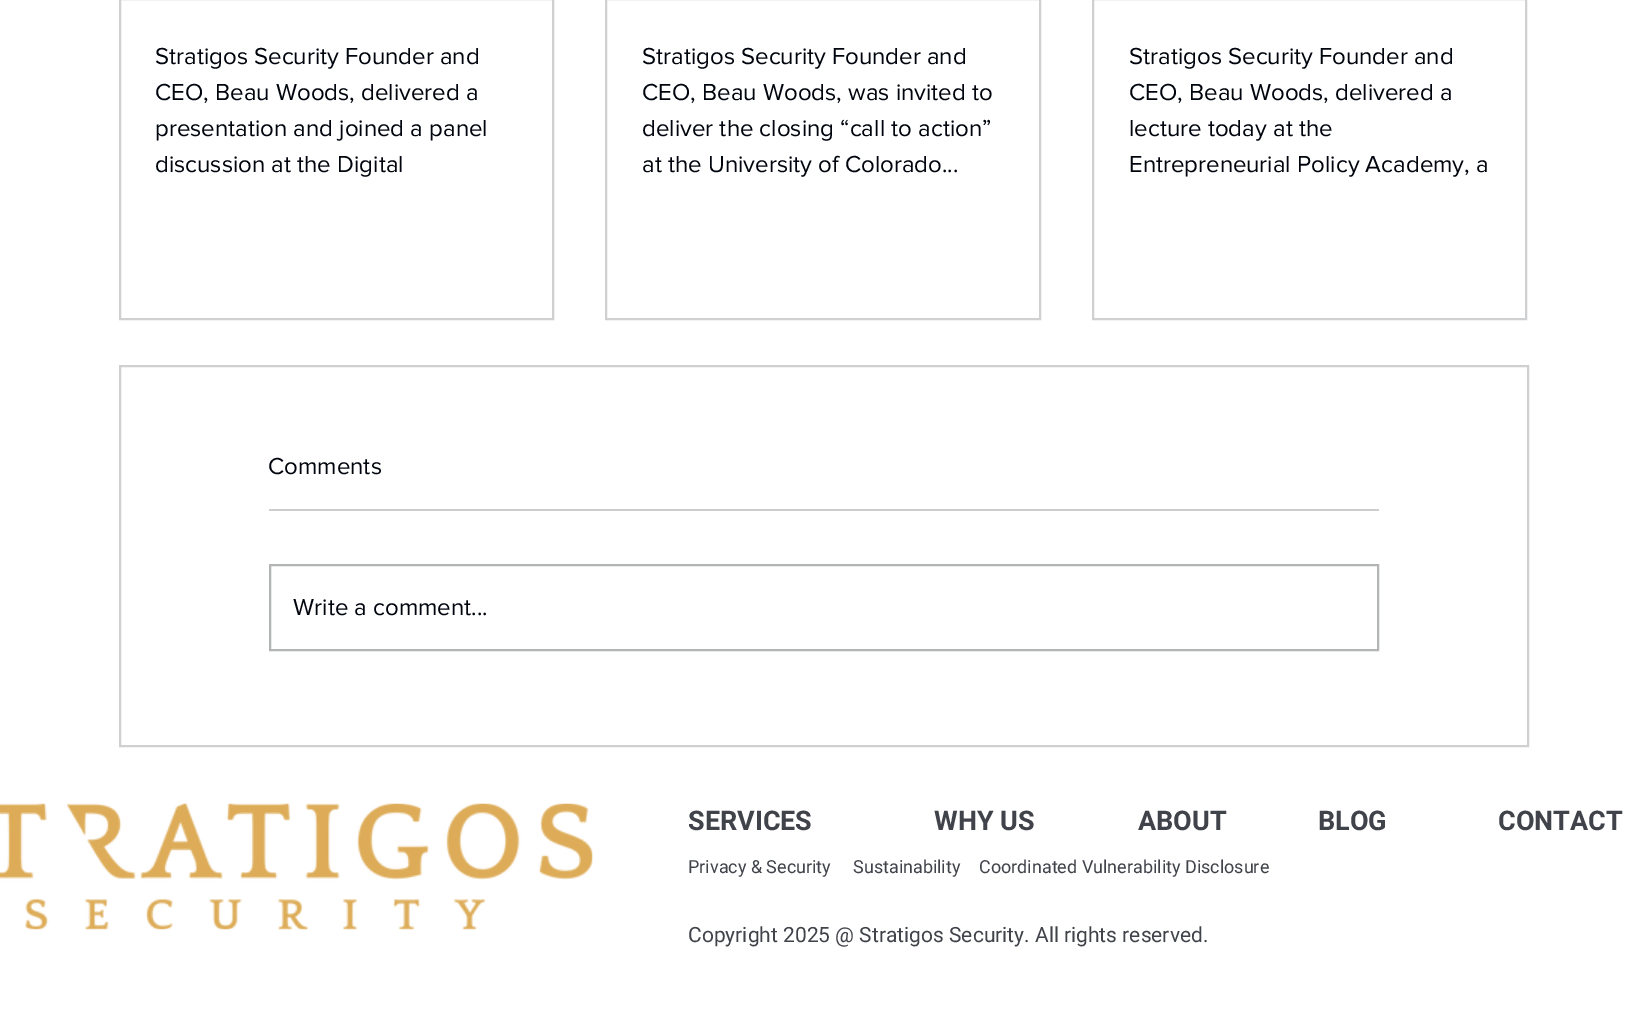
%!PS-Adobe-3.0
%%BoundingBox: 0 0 1645 1028
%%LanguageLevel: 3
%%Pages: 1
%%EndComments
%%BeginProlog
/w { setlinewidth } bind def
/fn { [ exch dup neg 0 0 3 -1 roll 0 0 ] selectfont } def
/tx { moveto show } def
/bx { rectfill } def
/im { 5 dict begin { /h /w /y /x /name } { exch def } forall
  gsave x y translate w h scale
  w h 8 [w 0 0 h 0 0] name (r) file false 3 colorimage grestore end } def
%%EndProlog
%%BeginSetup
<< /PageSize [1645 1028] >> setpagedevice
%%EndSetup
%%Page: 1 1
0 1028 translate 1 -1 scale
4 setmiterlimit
1 setgray
0 0 1645 1028 bx
0.812 0.816 0.824 setrgbcolor
2 w
120 -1 433 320 rectstroke
/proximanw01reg-Regular 24 fn
0 0.016 0.051 setrgbcolor
(Stratigos Security Founder and) 155 64 tx
(CEO, Beau Woods, delivered a) 155 100 tx
(presentation and joined a panel) 155 136 tx
(discussion at the Digital) 155 172 tx
0.812 0.816 0.824 setrgbcolor
606 -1 434 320 rectstroke
0 0.016 0.051 setrgbcolor
(Stratigos Security Founder and) 642 64 tx
(CEO, Beau Woods, was invited to) 642 100 tx
(deliver the closing “call to action”) 642 136 tx
(at the University of Colorado...) 642 172 tx
0.812 0.816 0.824 setrgbcolor
1093 -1 433 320 rectstroke
0 0.016 0.051 setrgbcolor
(Stratigos Security Founder and) 1129 64 tx
(CEO, Beau Woods, delivered a) 1129 100 tx
(lecture today at the) 1129 136 tx
(Entrepreneurial Policy Academy, a) 1129 172 tx
0.812 0.816 0.824 setrgbcolor
120 366 1408 380 rectstroke
0 0.016 0.051 setrgbcolor
(Comments) 268 474 tx
0.8 0.804 0.812 setrgbcolor
269 509 1110 2 bx
0.702 0.706 0.714 setrgbcolor
270 565 1108 85 rectstroke
0 0.016 0.051 setrgbcolor
(Write a comment...) 293 615 tx
(image0.raw) 0 803 593 127 im
/Roboto-Bold 27 fn
0.251 0.263 0.29 setrgbcolor
(SERVICES) 688 830 tx
(WHY US) 934 830 tx
(ABOUT) 1138 830 tx
(BLOG) 1318 830 tx
(CONTACT) 1498 830 tx
/Roboto-Regular 18 fn
(Privacy & Security) 688 873 tx
(Sustainability) 853 873 tx
(Coordinated Vulnerability Disclosure) 979 873 tx
/Roboto-Regular 21 fn
(Copyright 2025 @ Stratigos Security. All rights reserved.) 688 942 tx
showpage
%%EOF
